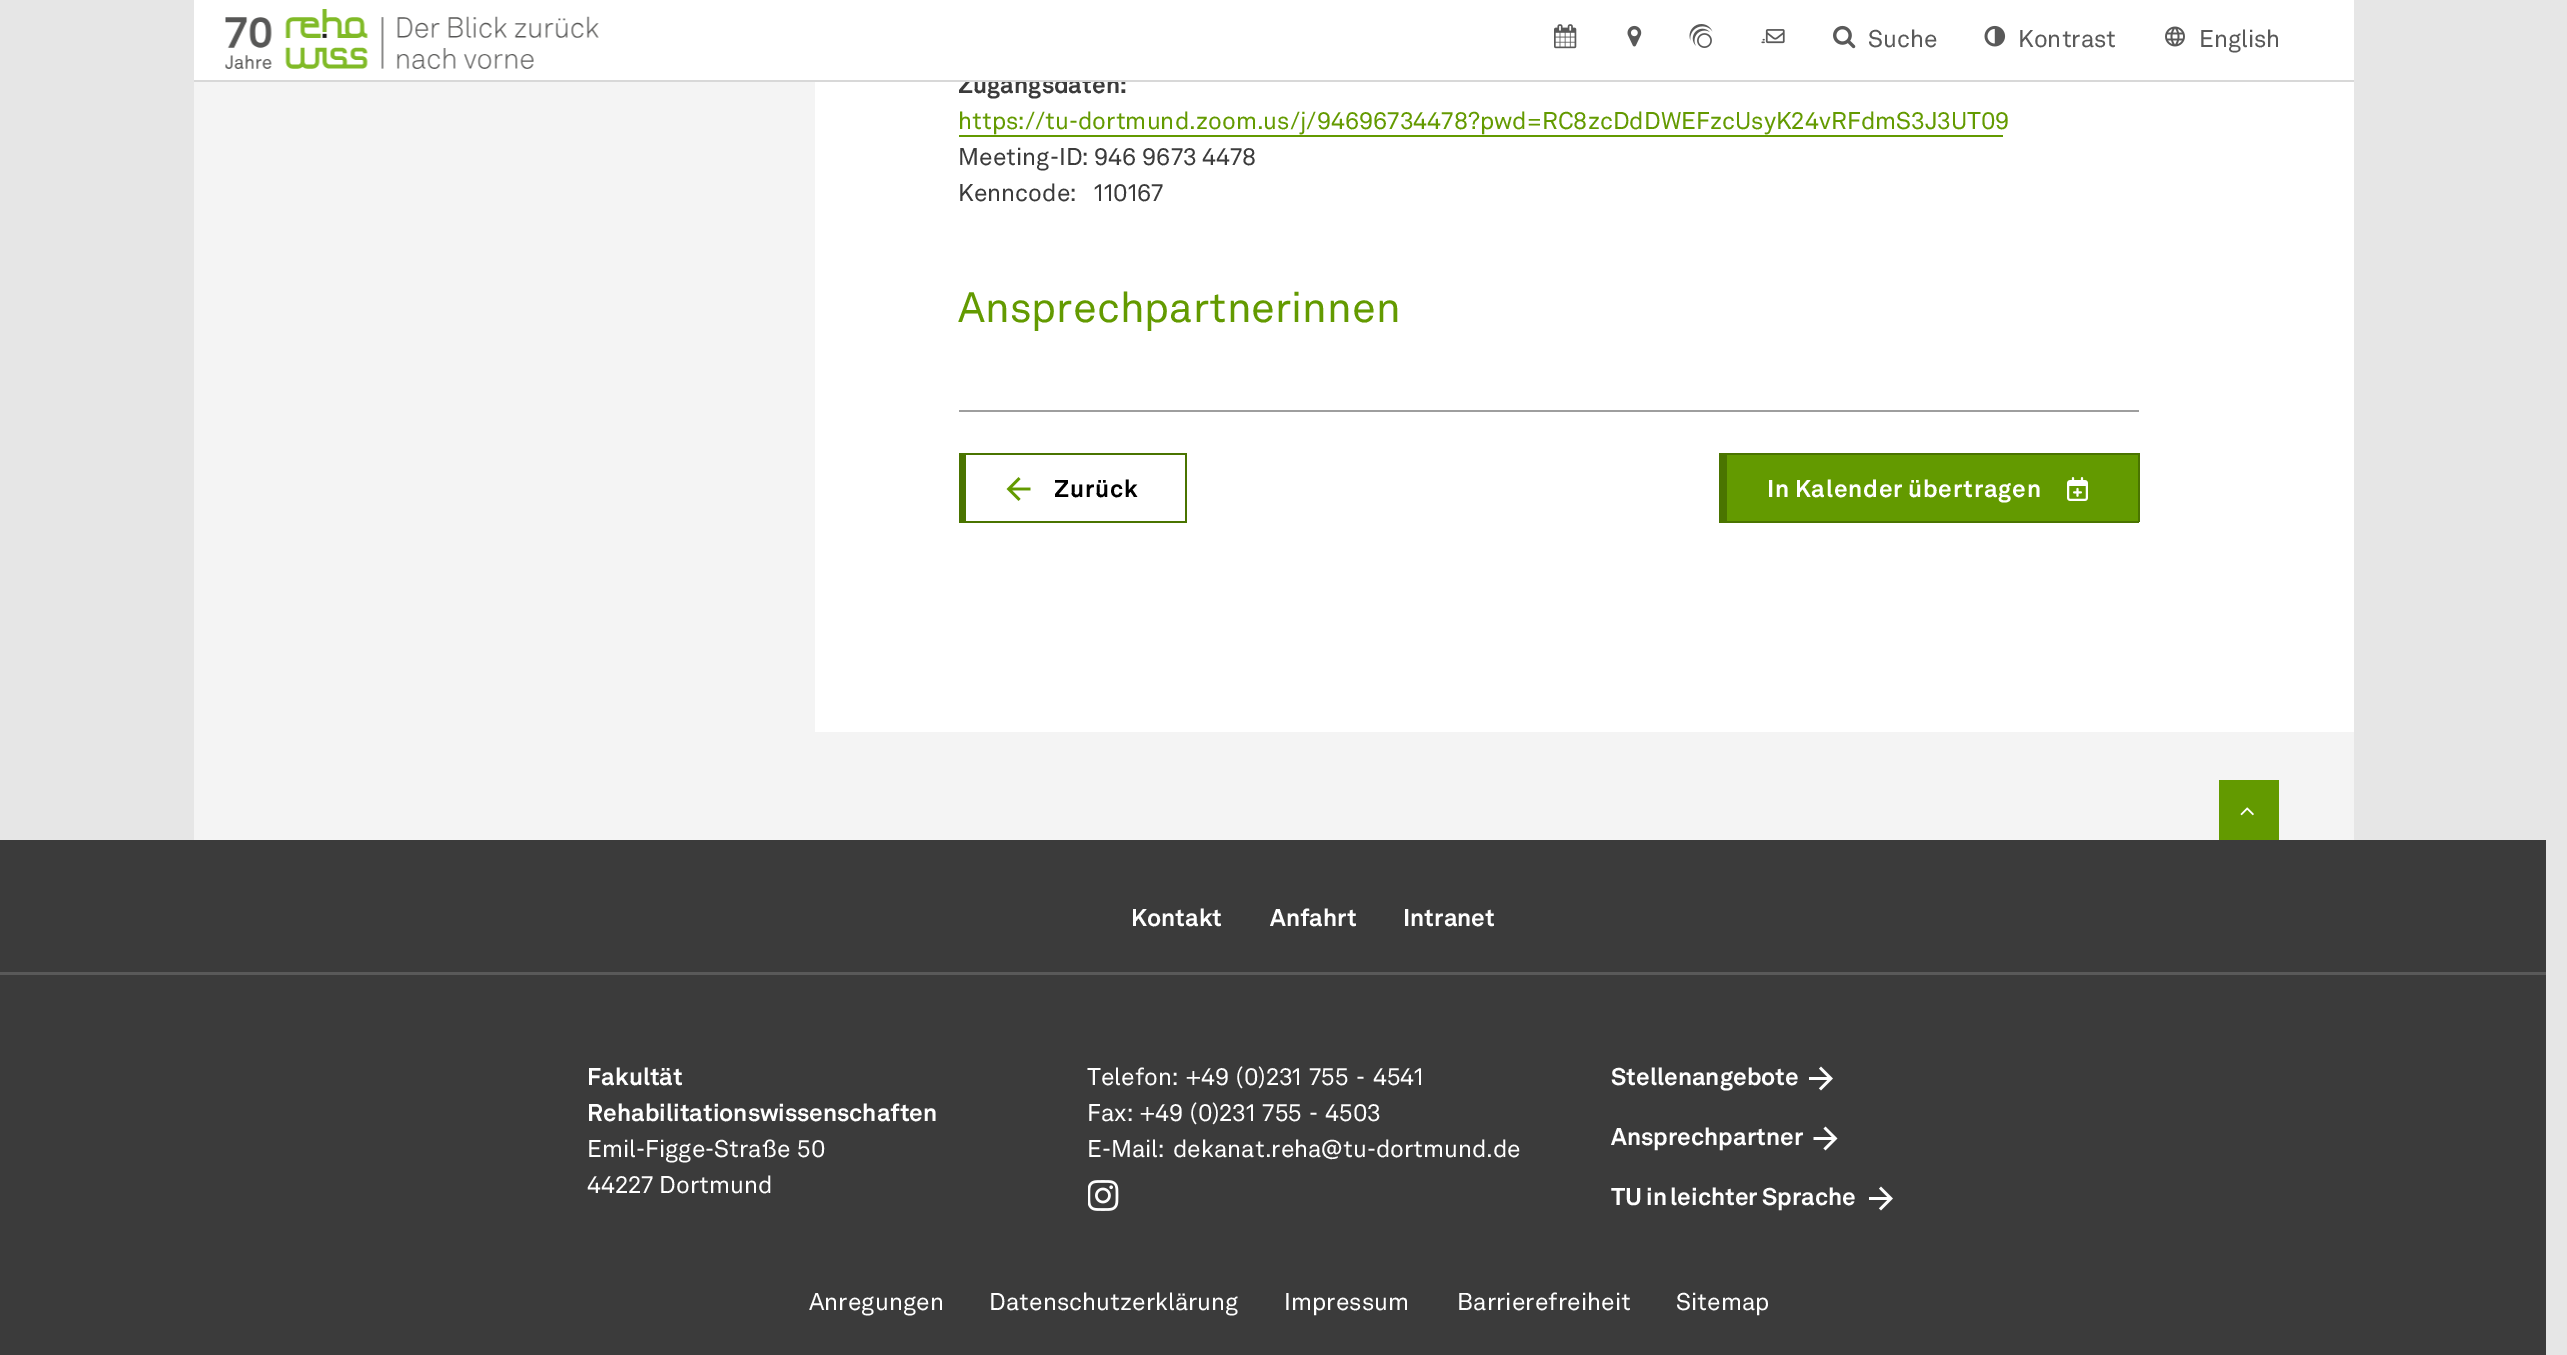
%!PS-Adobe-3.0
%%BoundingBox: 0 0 2567 1355
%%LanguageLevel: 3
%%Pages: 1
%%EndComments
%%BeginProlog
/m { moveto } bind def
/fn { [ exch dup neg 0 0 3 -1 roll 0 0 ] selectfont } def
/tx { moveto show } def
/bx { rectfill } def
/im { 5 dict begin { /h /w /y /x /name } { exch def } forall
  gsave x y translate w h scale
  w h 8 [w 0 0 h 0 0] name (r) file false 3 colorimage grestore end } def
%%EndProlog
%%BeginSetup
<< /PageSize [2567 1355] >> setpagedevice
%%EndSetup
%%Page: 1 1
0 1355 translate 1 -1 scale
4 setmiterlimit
0.902 setgray
0 0 2567 1355 bx
0.957 setgray
194 82 2160 758 bx
1 setgray
815 82 1539 650 bx
/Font-Bold 24 fn
0.231 setgray
(Zugangsdaten:) 958 93 tx
1 setgray
194 0 2160 80 bx
0.847 setgray
194 80 2160 2 bx
(image0.raw) 225 9 374 60 im
(image1.raw) 1554 24 23 25 im
(image2.raw) 1627 25 15 22 im
(image3.raw) 1689 24 24 24 im
(image4.raw) 1761 29 24 15 im
(image5.raw) 1833 25 23 24 im
/Font-Regular 24 fn
0.349 setgray
(Suche) 1868 47 tx
(image6.raw) 1984 25 22 22 im
(Kontrast) 2018 47 tx
(image7.raw) 2165 26 20 21 im
(English) 2199 47 tx
0.388 0.604 0 setrgbcolor
(https://tu-dortmund.zoom.us/j/94696734478?pwd=RC8zcDdDWEFzcUsyK24vRFdmS3J3UT09) 958 129 tx
959 135 1044 2 bx
0.231 setgray
(Meeting-ID: 946 9673 4478) 958 165 tx
958 201 m 12 0 32 (Kenncode: 110167) widthshow
/Font-Regular 42 fn
0.388 0.604 0 setrgbcolor
(Ansprechpartnerinnen) 958 322 tx
0.62 setgray
959 410 1180 2 bx
0.29 0.455 0 setrgbcolor
959 455 7 66 bx
959 453 228 2 bx
1185 453 2 69 bx
959 521 228 2 bx
(image8.raw) 1006 477 25 24 im
/Font-Bold 24 fn
0 setgray
1054 497 m 0.75 0 (Zurück) ashow
0.388 0.604 0 setrgbcolor
1727 455 411 66 bx
0.29 0.455 0 setrgbcolor
1719 455 8 66 bx
1719 453 420 2 bx
2138 453 2 69 bx
1719 521 420 2 bx
1 setgray
1767 497 m -1 0 32 0.75 0 (In Kalender übertragen) awidthshow
(image9.raw) 2067 477 21 24 im
0.388 0.604 0 setrgbcolor
2219 780 60 60 bx
(image10.raw) 2240 807 14 9 im
0.231 setgray
0 840 2546 515 bx
1 setgray
(Kontakt) 1131 926 tx
(Anfahrt) 1270 926 tx
(Intranet) 1403 926 tx
0.349 setgray
0 972 2546 3 bx
1 setgray
(Fakultät) 587 1085 tx
(Rehabilitationswissenschaften) 587 1121 tx
/Font-Regular 24 fn
587 1157 m 1 0 32 (Emil-Figge-Straße 50) widthshow
(44227 Dortmund) 587 1193 tx
1087 1085 m 2 0 32 (Telefon: +49 \(0\)231 755 - 4541) widthshow
1087 1121 m 1.5 0 32 (Fax: +49 \(0\)231 755 - 4503) widthshow
(E-Mail:) 1087 1157 tx
(dekanat.reha) 1173 1157 tx
(@) 1321 1157 tx
(tu-dortmund) 1343 1157 tx
(.de) 1486 1157 tx
(image11.raw) 1088 1180 31 31 im
/Font-Bold 24 fn
(Stellenangebote) 1611 1085 tx
(image12.raw) 1809 1066 24 25 im
(Ansprechpartner) 1611 1145 tx
(image13.raw) 1813 1126 25 25 im
1611 1205 m -1.5 0 32 (TU in leichter Sprache) widthshow
(image12.raw) 1869 1186 24 25 im
/Font-Regular 24 fn
(Anregungen) 809 1310 tx
(Datenschutzerklärung) 989 1310 tx
(Impressum) 1284 1310 tx
(Barrierefreiheit) 1457 1310 tx
(Sitemap) 1676 1310 tx
showpage
%%EOF
